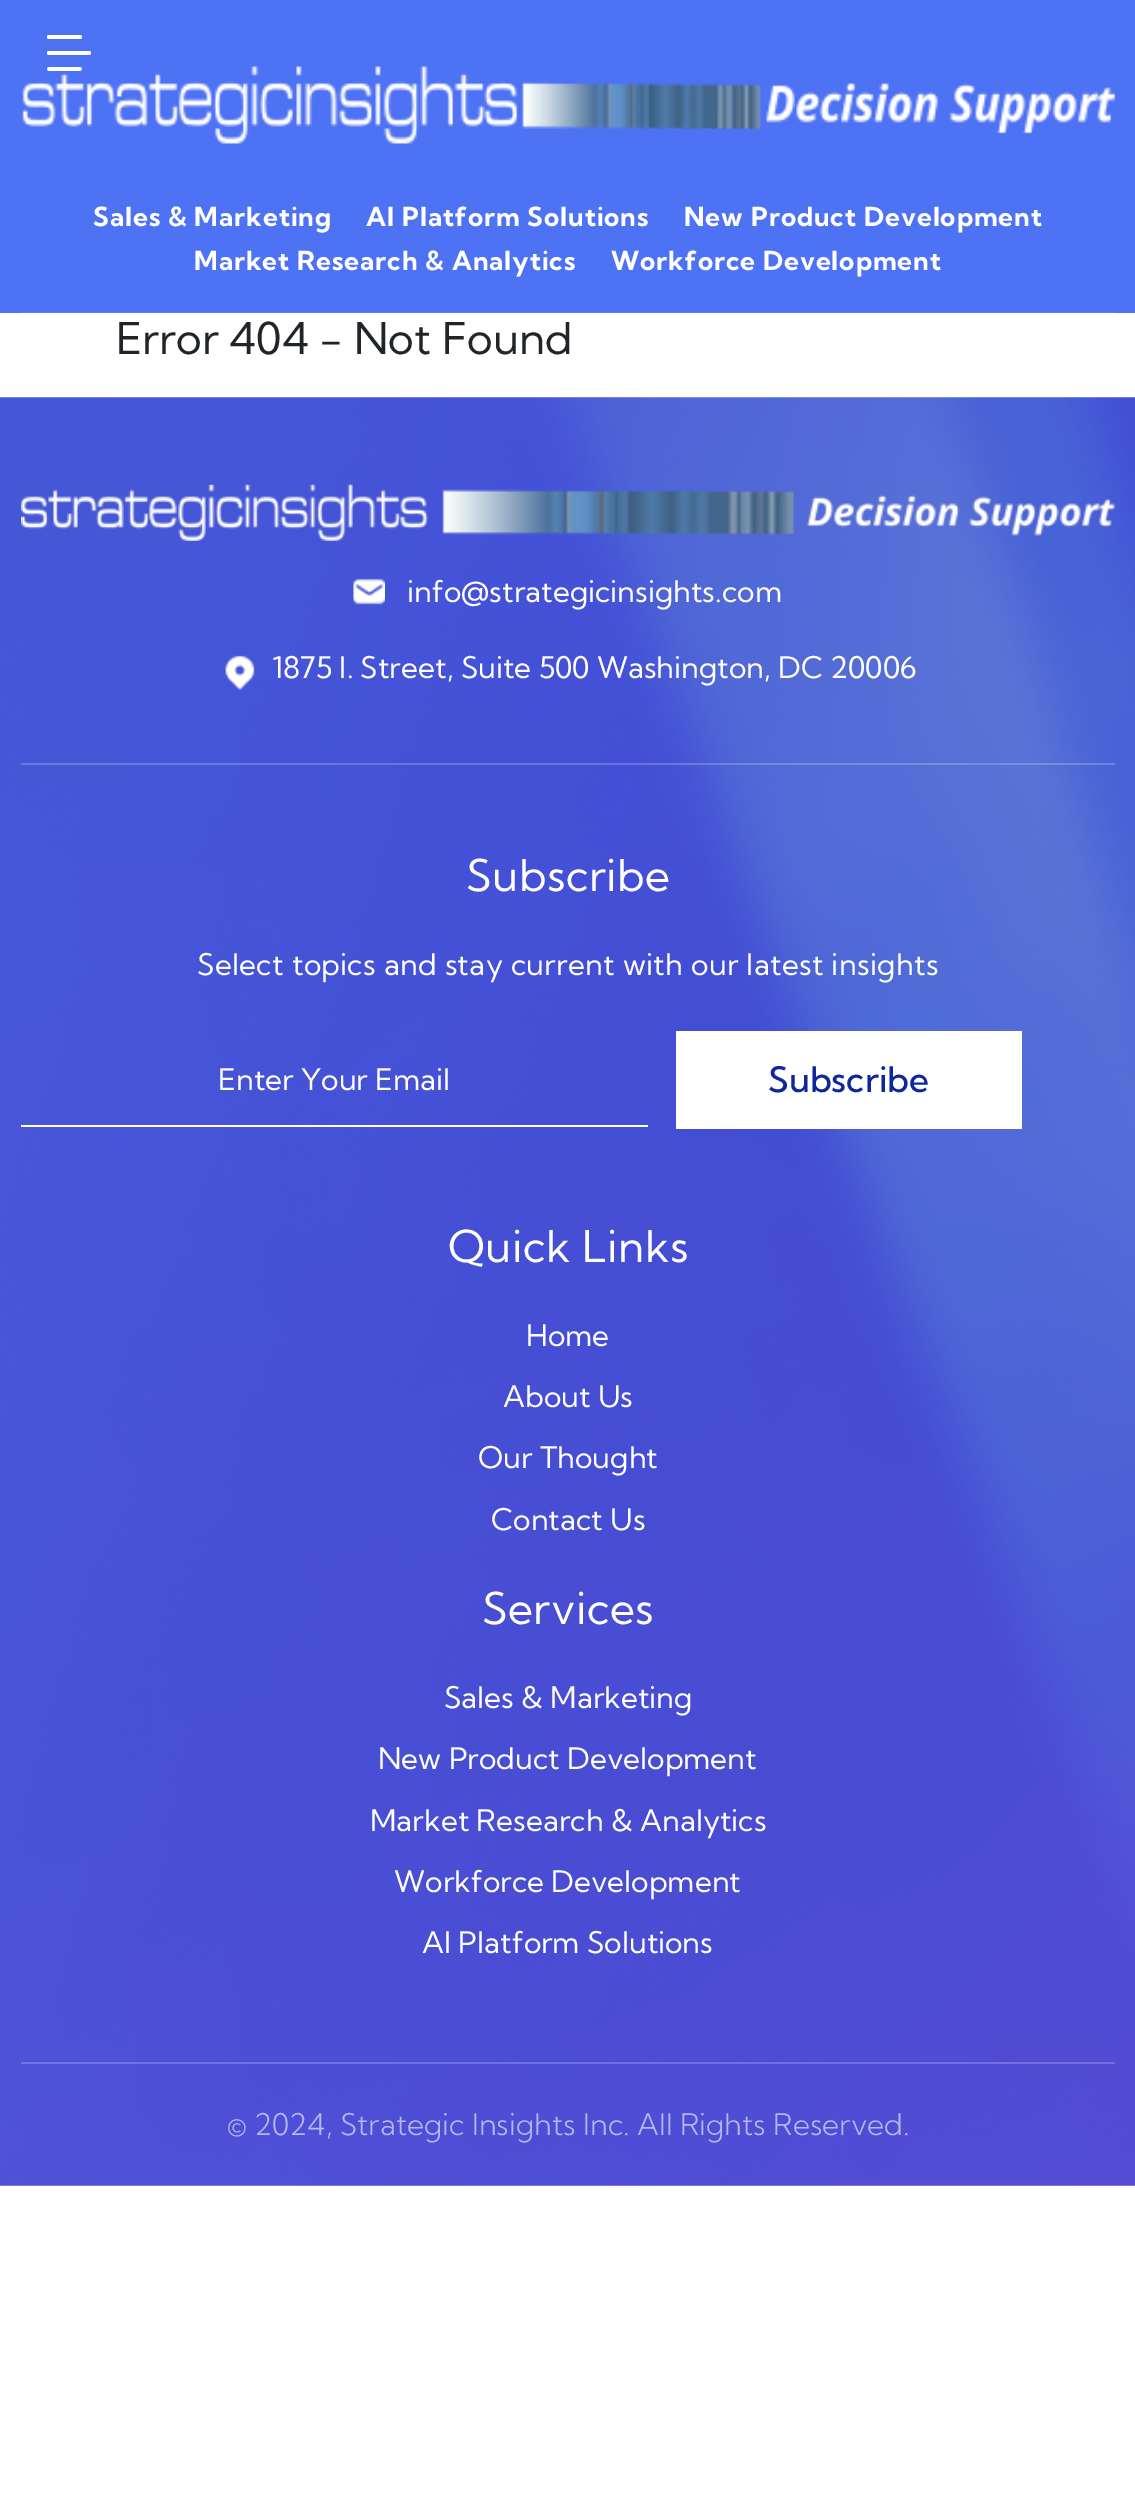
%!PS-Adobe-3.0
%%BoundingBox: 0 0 1135 2517
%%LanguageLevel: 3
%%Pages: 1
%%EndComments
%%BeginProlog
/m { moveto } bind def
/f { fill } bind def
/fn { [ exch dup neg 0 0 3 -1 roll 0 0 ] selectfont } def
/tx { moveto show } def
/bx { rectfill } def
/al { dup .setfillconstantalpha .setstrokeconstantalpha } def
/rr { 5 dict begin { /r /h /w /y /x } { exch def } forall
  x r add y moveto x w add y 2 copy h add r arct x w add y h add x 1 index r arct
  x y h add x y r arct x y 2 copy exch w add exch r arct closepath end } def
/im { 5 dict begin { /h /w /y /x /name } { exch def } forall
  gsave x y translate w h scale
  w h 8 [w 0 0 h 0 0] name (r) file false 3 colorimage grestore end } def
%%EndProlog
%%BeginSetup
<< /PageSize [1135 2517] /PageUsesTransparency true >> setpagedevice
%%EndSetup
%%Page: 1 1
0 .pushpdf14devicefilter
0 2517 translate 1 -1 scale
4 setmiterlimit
1 setgray
0 0 1135 2517 bx
0.306 0.447 0.957 setrgbcolor
0 0 1135 313 bx
0.376 0.502 0.961 setrgbcolor
21 312 1094 1 bx
1 setgray
47 35 35 4 2 rr f
47 51 44 4 2 rr f
47 67 35 4 2 rr f
(image0.raw) 22 66 1093 78 im
/KumbhSans-Bold 26.25 fn
93 226 m 0.9 0 (Sales & Marketing) ashow
366 226 m 0.9 0 (AI Platform Solutions) ashow
684 226 m 0.9 0 (New Product Development) ashow
194 270 m 0.9 0 (Market Research & Analytics) ashow
611 270 m 0.9 0 (Workforce Development) ashow
/KumbhSans-Regular 43.75 fn
0.129 0.145 0.161 setrgbcolor
(Error 404 - Not Found) 116 354 tx
(image1.raw) 0 397 1135 1789 im
0.2 al
1 setgray
21 763 1094 2 bx
1 al
(image2.raw) 21 484 1094 57 im
(image3.raw) 353 578 32 27 im
/KumbhSans-Regular 29.75 fn
(info@strategicinsights.com) 407 602 tx
(image4.raw) 225 655 30 35 im
(1875 I. Street, Suite 500 Washington, DC 20006) 272 678 tx
/KumbhSans-Regular 43.75 fn
466 891 m 0.5 0 (Subscribe) ashow
/KumbhSans-Regular 29.75 fn
197 975 m 0.3 0 (Select topics and stay current with our latest insights) ashow
21 1125 627 2 bx
(Enter Your Email) 218 1090 tx
676 1031 346 98 bx
/KumbhSans-Medium 35 fn
0.055 0.153 0.616 setrgbcolor
(Subscribe) 768 1092 tx
/KumbhSans-Regular 43.75 fn
1 setgray
448 1262 m 0.5 0 (Quick Links) ashow
/KumbhSans-Regular 29.75 fn
(Home) 526 1346 tx
(About Us) 503 1407 tx
(Our Thought) 478 1468 tx
(Contact Us) 491 1530 tx
/KumbhSans-Regular 43.75 fn
482 1624 m 0.5 0 (Services) ashow
/KumbhSans-Regular 29.75 fn
(Sales & Marketing) 444 1708 tx
(New Product Development) 378 1769 tx
(Market Research & Analytics) 370 1831 tx
(Workforce Development) 394 1892 tx
(AI Platform Solutions) 422 1953 tx
0.2 al
21 2062 1094 2 bx
/KumbhSans-Light 29.75 fn
1 al
0.722 0.722 0.933 setrgbcolor
(© 2024, Strategic Insights Inc. All Rights Reserved.) 227 2135 tx
.poppdf14devicefilter showpage
%%EOF
